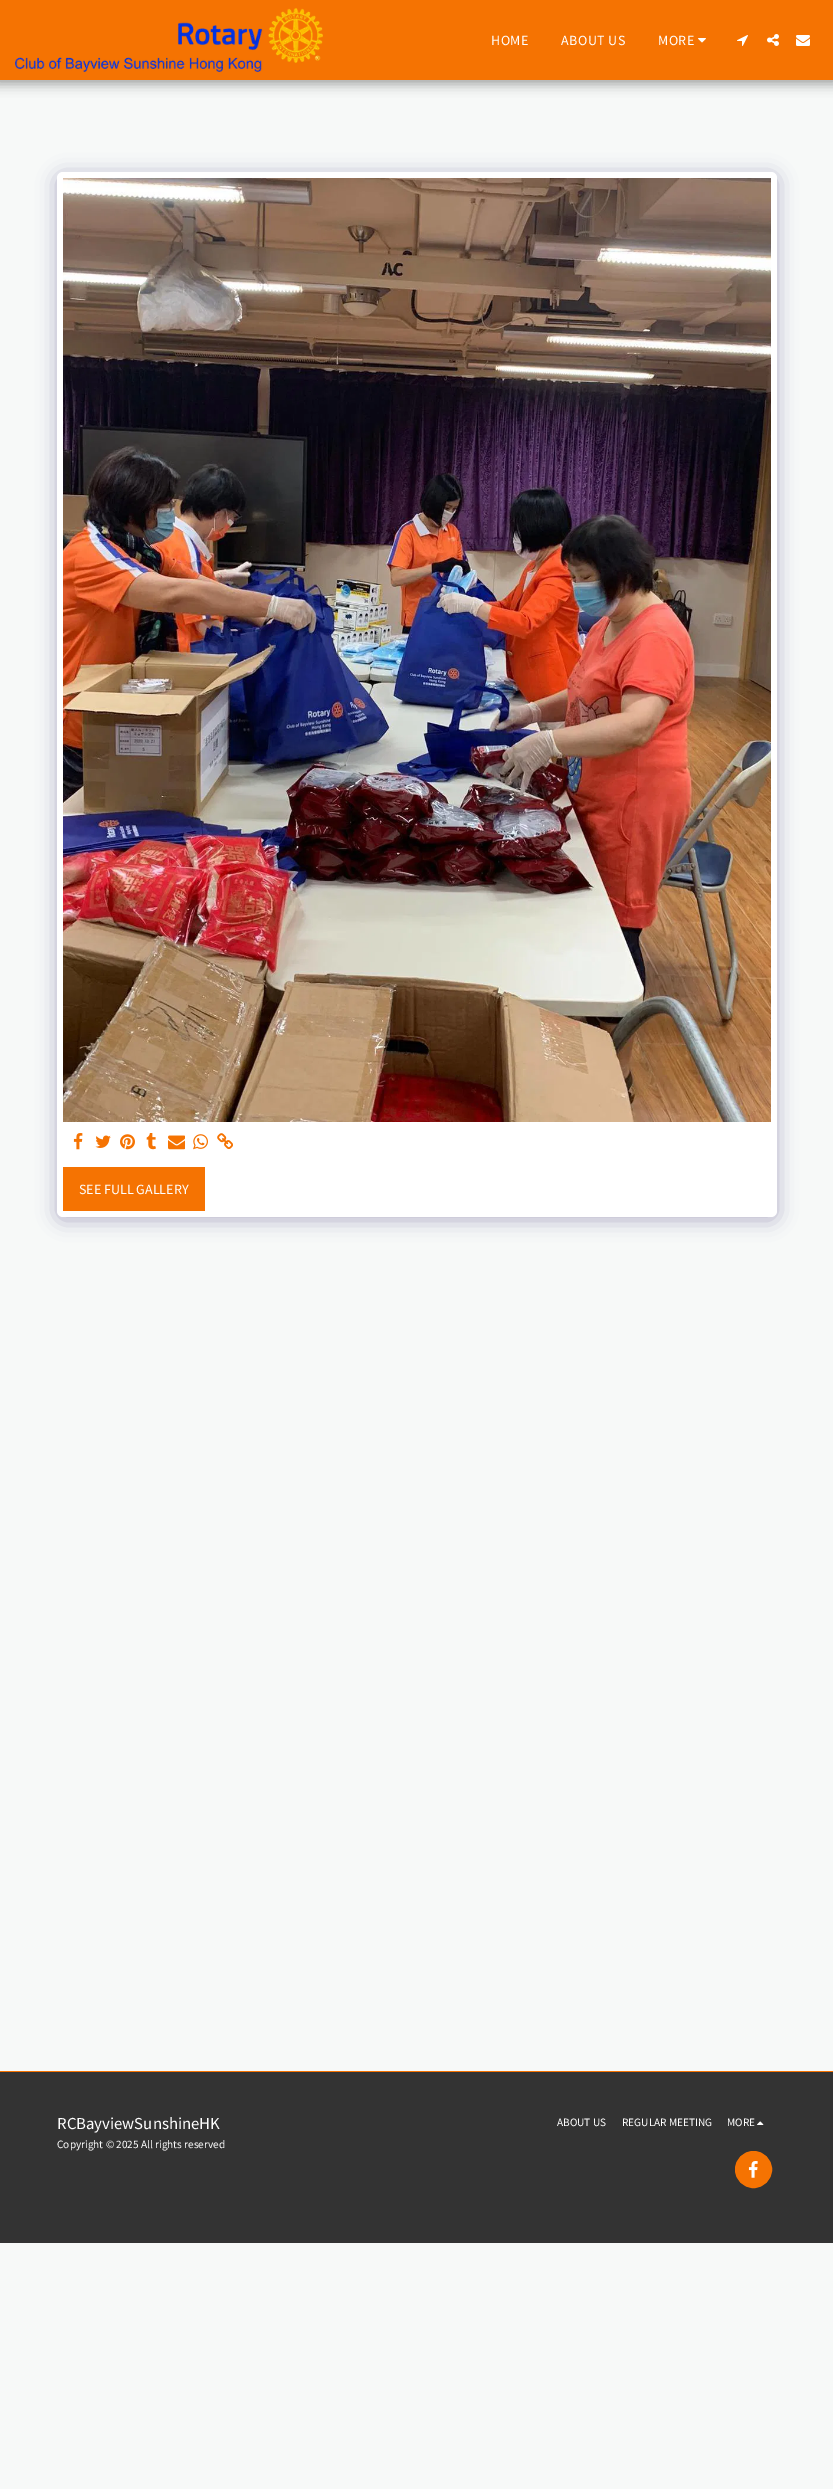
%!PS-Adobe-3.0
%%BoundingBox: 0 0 833 2489
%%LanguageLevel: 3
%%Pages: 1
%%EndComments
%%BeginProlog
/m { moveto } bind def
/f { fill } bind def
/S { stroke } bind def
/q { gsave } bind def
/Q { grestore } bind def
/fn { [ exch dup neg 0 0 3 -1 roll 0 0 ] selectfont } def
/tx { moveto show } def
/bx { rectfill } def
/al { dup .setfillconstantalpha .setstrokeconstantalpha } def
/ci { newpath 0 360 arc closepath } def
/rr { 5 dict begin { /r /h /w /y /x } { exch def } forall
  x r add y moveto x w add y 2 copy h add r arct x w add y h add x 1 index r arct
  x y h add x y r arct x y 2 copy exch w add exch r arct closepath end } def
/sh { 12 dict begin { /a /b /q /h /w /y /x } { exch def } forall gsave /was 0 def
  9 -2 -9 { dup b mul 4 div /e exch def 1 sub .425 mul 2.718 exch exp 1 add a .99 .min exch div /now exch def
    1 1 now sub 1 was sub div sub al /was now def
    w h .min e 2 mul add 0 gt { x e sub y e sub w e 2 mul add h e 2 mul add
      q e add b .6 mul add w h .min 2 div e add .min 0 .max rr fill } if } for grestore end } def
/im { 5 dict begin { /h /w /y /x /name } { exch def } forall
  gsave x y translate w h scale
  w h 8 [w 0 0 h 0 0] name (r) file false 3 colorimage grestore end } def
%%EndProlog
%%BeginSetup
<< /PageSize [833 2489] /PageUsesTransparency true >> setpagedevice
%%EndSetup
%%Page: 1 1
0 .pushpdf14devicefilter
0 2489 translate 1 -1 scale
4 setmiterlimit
0.969 0.976 0.973 setrgbcolor
0 0 833 2489 bx
0 setgray
-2 0 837 84 0 6 0.35 sh
0.961 0.451 0.008 setrgbcolor
0 0 833 80 bx
(image0.raw) 15 8 308 64 im
/SourceSansPro-Regular 14 fn
1 setgray
491 45 m 0.5 0 (HOME) ashow
561 45 m 0.5 0 (ABOUT US) ashow
658 45 m 0.5 0 (MORE) ashow
(image1.raw) 698 38 8 5 im
(image2.raw) 737 35 11 11 im
(image3.raw) 767 34 12 12 im
(image4.raw) 796 35 14 11 im
0.302 0.247 0.478 setrgbcolor
57 175 720 1045 6 10 0.4 sh
1 setgray
57 172 720 1045 6 rr f
(image5.raw) 63 178 708 944 im
(image6.raw) 73 1133 10 17 im
(image7.raw) 95 1135 16 13 im
(image8.raw) 120 1134 15 16 im
(image9.raw) 146 1133 10 17 im
(image10.raw) 168 1135 17 15 im
(image11.raw) 193 1134 15 16 im
(image12.raw) 217 1133 16 17 im
0.961 0.451 0.008 setrgbcolor
63 1167 142 44 bx
1 setgray
(SEE FULL GALLERY) 79 1194 tx
0.2 setgray
0 2072 833 171 bx
0.961 0.451 0.008 setrgbcolor
0 2071 833 1 bx
/SourceSansPro-Regular 16.75 fn
1 setgray
(RCBayviewSunshineHK) 57 2129 tx
/SourceSansPro-Regular 11.25 fn
(Copyright © 2025 All rights reserved) 57 2148 tx
(ABOUT US) 557 2126 tx
(REGULAR MEETING) 622 2126 tx
(MORE) 727 2126 tx
(image13.raw) 757 2121 7 4 im
0.961 0.451 0.008 setrgbcolor
753.5 2169.5 18 ci q f Q
S
(image14.raw) 748 2161 10 17 im
.poppdf14devicefilter showpage
%%EOF
